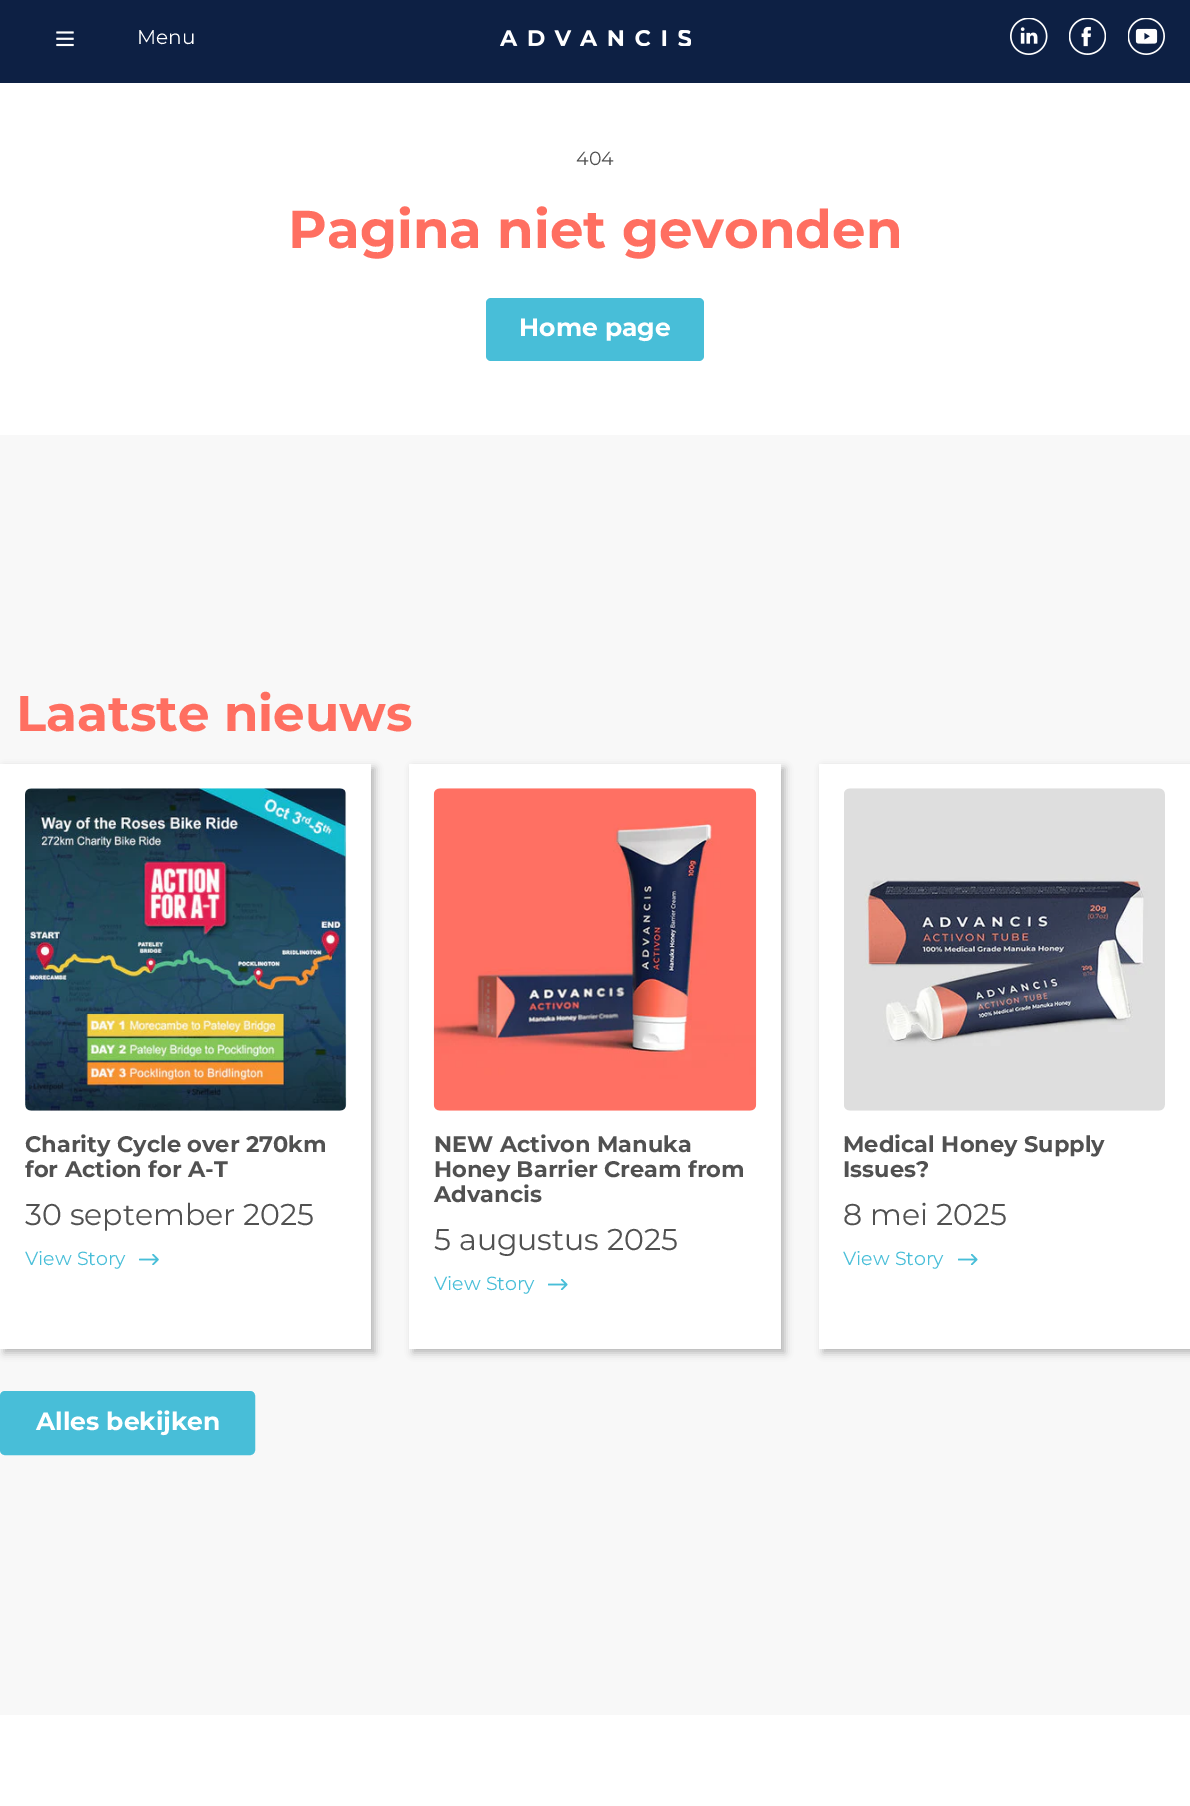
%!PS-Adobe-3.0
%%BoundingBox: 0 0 1190 1806
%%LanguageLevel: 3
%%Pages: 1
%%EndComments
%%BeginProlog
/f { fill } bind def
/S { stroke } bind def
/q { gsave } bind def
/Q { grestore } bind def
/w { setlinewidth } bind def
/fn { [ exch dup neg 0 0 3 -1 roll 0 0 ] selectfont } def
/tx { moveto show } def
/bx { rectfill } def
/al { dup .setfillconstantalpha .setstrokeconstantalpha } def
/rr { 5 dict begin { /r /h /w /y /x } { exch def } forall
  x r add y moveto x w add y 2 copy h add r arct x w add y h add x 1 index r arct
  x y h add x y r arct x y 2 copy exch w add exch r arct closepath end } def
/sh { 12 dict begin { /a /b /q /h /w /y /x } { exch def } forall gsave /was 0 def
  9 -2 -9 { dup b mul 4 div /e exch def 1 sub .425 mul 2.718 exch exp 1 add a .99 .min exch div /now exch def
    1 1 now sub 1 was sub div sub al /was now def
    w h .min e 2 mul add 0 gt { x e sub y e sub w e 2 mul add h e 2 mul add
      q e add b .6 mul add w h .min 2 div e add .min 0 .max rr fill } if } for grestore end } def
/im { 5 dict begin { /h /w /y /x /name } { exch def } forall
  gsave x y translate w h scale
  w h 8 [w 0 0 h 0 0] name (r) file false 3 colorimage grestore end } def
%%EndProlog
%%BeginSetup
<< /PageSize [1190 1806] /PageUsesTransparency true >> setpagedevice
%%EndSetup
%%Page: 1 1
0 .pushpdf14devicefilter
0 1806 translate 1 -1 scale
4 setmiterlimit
1 setgray
0 0 1190 1806 bx
0.051 0.125 0.267 setrgbcolor
0 0 1190 83 bx
(image0.raw) 56 31 18 16 im
/Montserrat-Regular 20 fn
1 setgray
(Menu) 137 44 tx
(image1.raw) 500 30 191 16 im
(image2.raw) 1010 18 38 37 im
(image3.raw) 1069 18 37 37 im
(image4.raw) 1128 18 37 37 im
/Montserrat-Regular 19 fn
0.318 setgray
(404) 576 165 tx
/Montserrat-Bold 53.1 fn
1 0.435 0.38 setrgbcolor
(Pagina niet gevonden) 288 248 tx
0.282 0.745 0.847 setrgbcolor
486 298 218 63 5 rr f
/Montserrat-Bold 25 fn
1 setgray
(Home page) 519 336 tx
0.973 setgray
0 435 1190 1280 bx
/Montserrat-Bold 50 fn
1 0.435 0.38 setrgbcolor
(Laatste nieuws) 16 731 tx
0 setgray
4 768 371 585 0 4 0.25 sh
1 setgray
0 764 371 585 bx
(image5.raw) 25 788 322 323 im
/Montserrat-Bold 22.5 fn
0.318 setgray
(Charity Cycle over 270km) 25 1152 tx
(for Action for A-T) 25 1177 tx
/Montserrat-Regular 30 fn
(30 september 2025) 25 1225 tx
/Montserrat-Regular 19 fn
0.282 0.745 0.847 setrgbcolor
(View Story) 25 1265 tx
(image6.raw) 139 1254 20 11 im
0 setgray
413 768 372 585 0 4 0.25 sh
1 setgray
409 764 372 585 bx
(image7.raw) 433 788 324 323 im
/Montserrat-Bold 22.5 fn
0.318 setgray
(NEW Activon Manuka) 434 1152 tx
(Honey Barrier Cream from) 434 1177 tx
(Advancis) 434 1202 tx
/Montserrat-Regular 30 fn
(5 augustus 2025) 434 1250 tx
/Montserrat-Regular 19 fn
0.282 0.745 0.847 setrgbcolor
(View Story) 434 1290 tx
(image8.raw) 548 1279 20 11 im
0 setgray
823 768 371 585 0 4 0.25 sh
1 setgray
819 764 371 585 bx
(image9.raw) 844 788 321 323 im
/Montserrat-Bold 22.5 fn
0.318 setgray
(Medical Honey Supply) 843 1152 tx
(Issues?) 843 1177 tx
/Montserrat-Regular 30 fn
(8 mei 2025) 843 1225 tx
/Montserrat-Regular 19 fn
0.282 0.745 0.847 setrgbcolor
(View Story) 843 1265 tx
(image8.raw) 958 1254 20 11 im
2 1393 251 60 3 rr q f Q
4 w
S
/Montserrat-Bold 25 fn
1 setgray
(Alles bekijken) 36 1430 tx
.poppdf14devicefilter showpage
%%EOF
